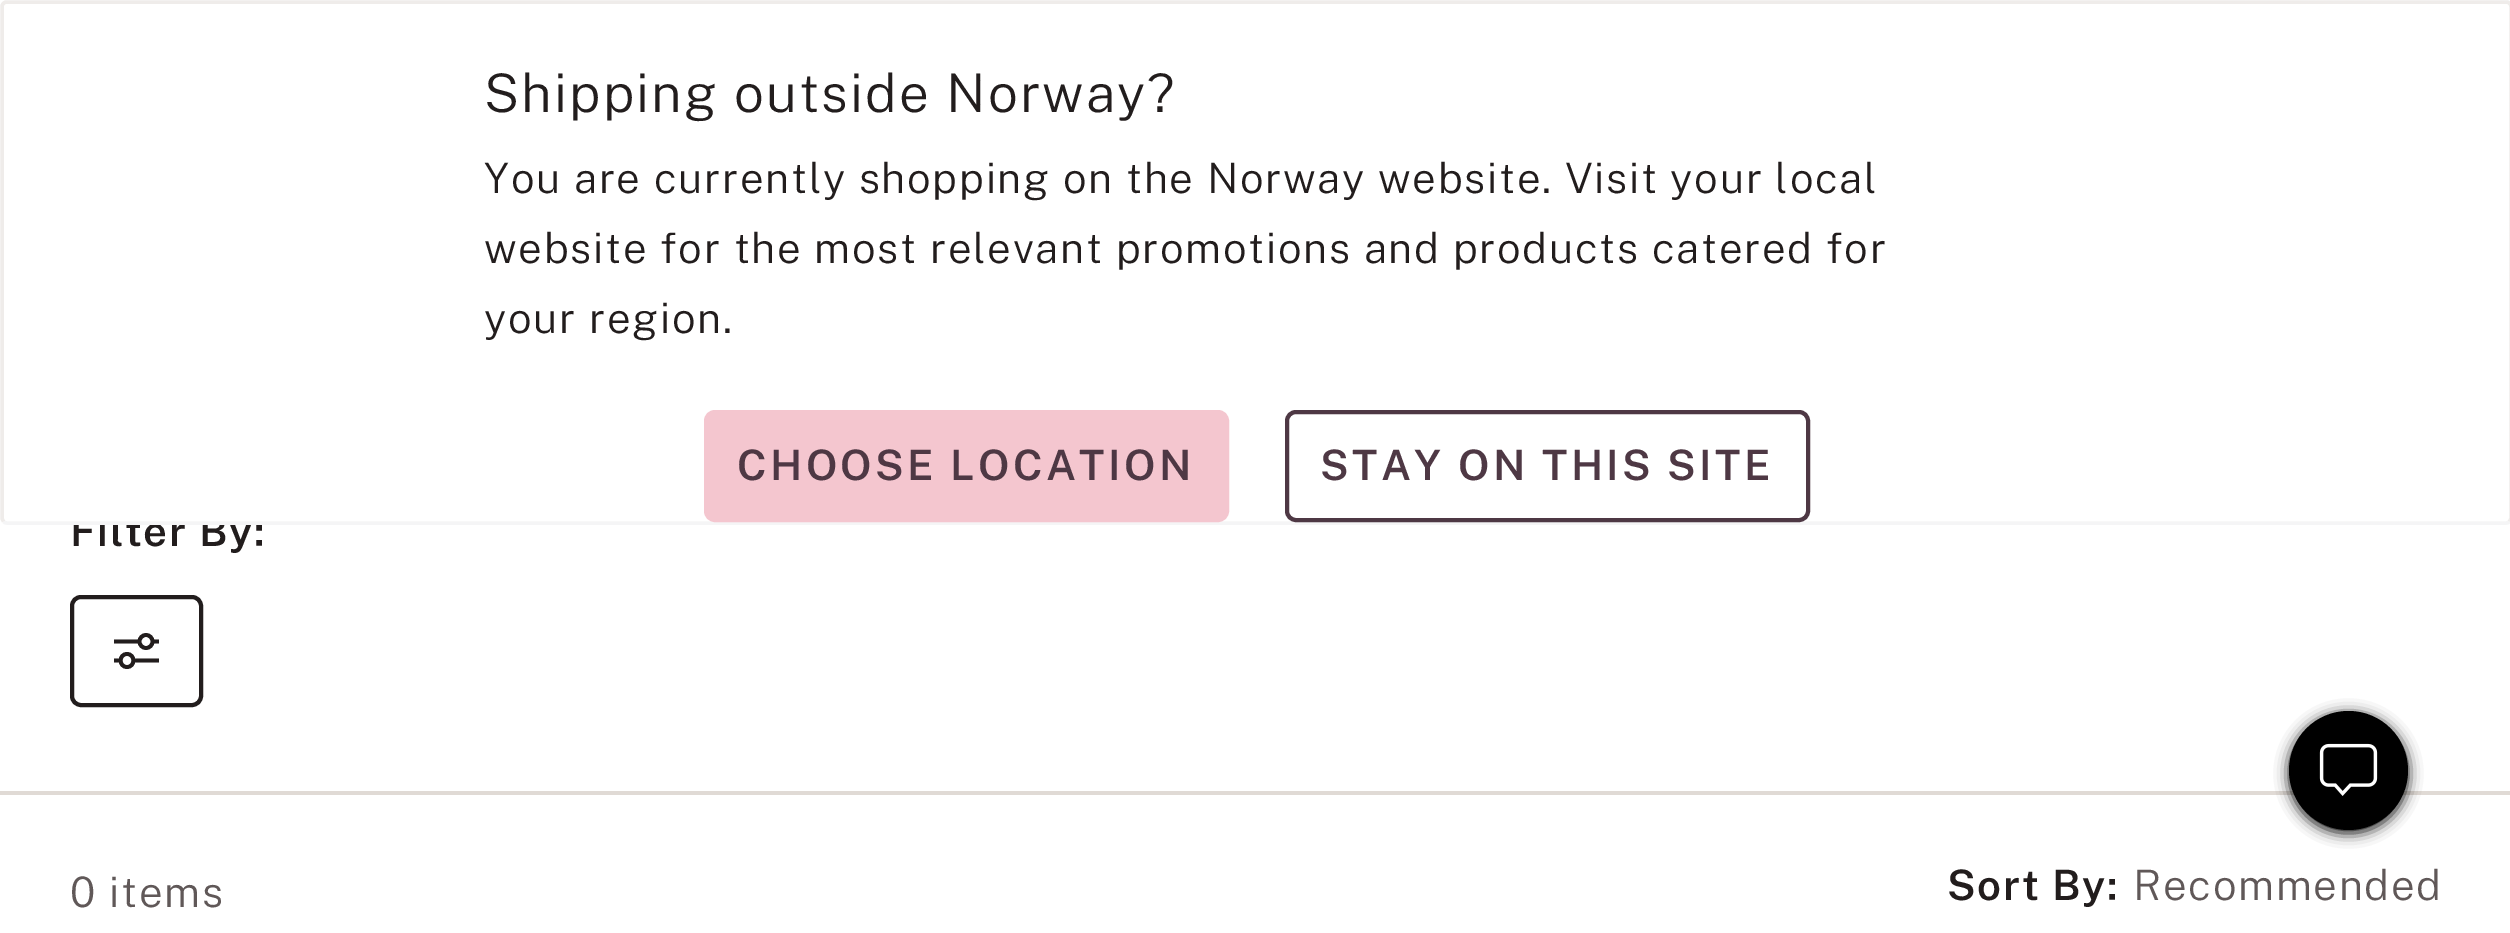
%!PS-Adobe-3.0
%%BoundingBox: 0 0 2510 933
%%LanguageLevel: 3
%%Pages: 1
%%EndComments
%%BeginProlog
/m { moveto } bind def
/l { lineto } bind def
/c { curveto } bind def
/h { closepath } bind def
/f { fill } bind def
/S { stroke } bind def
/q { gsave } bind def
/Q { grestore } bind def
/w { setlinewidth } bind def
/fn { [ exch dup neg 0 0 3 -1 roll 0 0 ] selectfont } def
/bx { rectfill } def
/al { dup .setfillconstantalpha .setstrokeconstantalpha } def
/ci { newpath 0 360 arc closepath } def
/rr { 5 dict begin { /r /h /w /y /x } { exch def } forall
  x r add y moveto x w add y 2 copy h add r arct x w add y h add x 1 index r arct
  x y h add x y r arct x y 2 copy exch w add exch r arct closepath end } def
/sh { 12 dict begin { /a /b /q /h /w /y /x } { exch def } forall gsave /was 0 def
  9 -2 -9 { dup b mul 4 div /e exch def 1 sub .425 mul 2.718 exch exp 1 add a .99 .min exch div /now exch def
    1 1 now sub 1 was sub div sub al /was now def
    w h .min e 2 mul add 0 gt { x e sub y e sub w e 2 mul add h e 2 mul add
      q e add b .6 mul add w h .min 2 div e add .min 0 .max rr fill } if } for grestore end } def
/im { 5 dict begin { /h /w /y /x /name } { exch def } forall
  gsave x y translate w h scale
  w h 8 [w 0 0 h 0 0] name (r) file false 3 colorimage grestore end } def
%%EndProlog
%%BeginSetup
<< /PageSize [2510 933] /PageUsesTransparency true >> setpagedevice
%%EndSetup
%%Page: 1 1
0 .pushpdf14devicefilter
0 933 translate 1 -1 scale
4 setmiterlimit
1 setgray
0 0 2510 933 bx
/PublicSans-SemiBold 42 fn
0.133 0.114 0.114 setrgbcolor
70 546 m 1.68 0 (Filter By:) ashow
1 setgray
0 0 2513 525 7 rr f
0.961 0.961 0.965 setrgbcolor
3.5 w
2509.5 521.5 m 2508.5 522.5 2507.5 523 2506 523 c 7 523 l 5.5 523 4.5 522.5 3.5 521.5 c S
0.937 0.925 0.918 setrgbcolor
3.5 521.5 m 2 518.5 l 2 7 l 2 4 4 2 7 2 c 2506 2 l 2509 2 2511 4 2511 7 c 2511 518.5 l 2509.5 521.5 l S
/PublicSans-Light 53.2 fn
0.133 0.114 0.114 setrgbcolor
484 112 m 2.1 0 (Shipping outside Norway?) ashow
/PublicSans-Light 42 fn
484 193 m 1.68 0 (You are currently shopping on the Norway website. Visit your local) ashow
484 263 m 1.68 0 (website for the most relevant promotions and products catered for) ashow
484 333 m 1.68 0 (your region.) ashow
0.957 0.776 0.812 setrgbcolor
706 412 521 108 9 rr q f Q
4 w
S
/PublicSans-SemiBold 42 fn
0.306 0.22 0.267 setrgbcolor
737 480 m 3.4 0 (CHOOSE LOCATION) ashow
1 setgray
1287 412 521 108 9 rr q f Q
0.306 0.22 0.267 setrgbcolor
S
1320 480 m 3.4 0 (STAY ON THIS SITE) ashow
0.133 0.114 0.114 setrgbcolor
72 597 129 108 9 rr S
3.8 w
114 641.5 m 139.5 641.5 l 152.5 641.5 m 159 641.5 l S
146 641.5 6.5 ci S
159 660.5 m 133.5 660.5 l 120.5 660.5 m 114 660.5 l 127 667 m 118.5 667 118.5 654 127 654 c 135.5 654 135.5 667 127 667 c h S
0.878 0.855 0.835 setrgbcolor
0 791 2510 4 bx
/PublicSans-Light 42 fn
0.376 0.345 0.345 setrgbcolor
70 907 m 1.68 0 (0 items) ashow
/PublicSans-SemiBold 42 fn
0.133 0.114 0.114 setrgbcolor
1947 900 m 1.68 0 (Sort By:) ashow
/PublicSans-Light 42 fn
0.376 0.345 0.345 setrgbcolor
2133 900 m 1.68 0 (Recommended) ashow
0 setgray
2289 714 119 119 59.5 7 1 sh
2348.5 770.5 59.5 ci f
(image0.raw) 2319 743 59 53 im
.poppdf14devicefilter showpage
%%EOF
